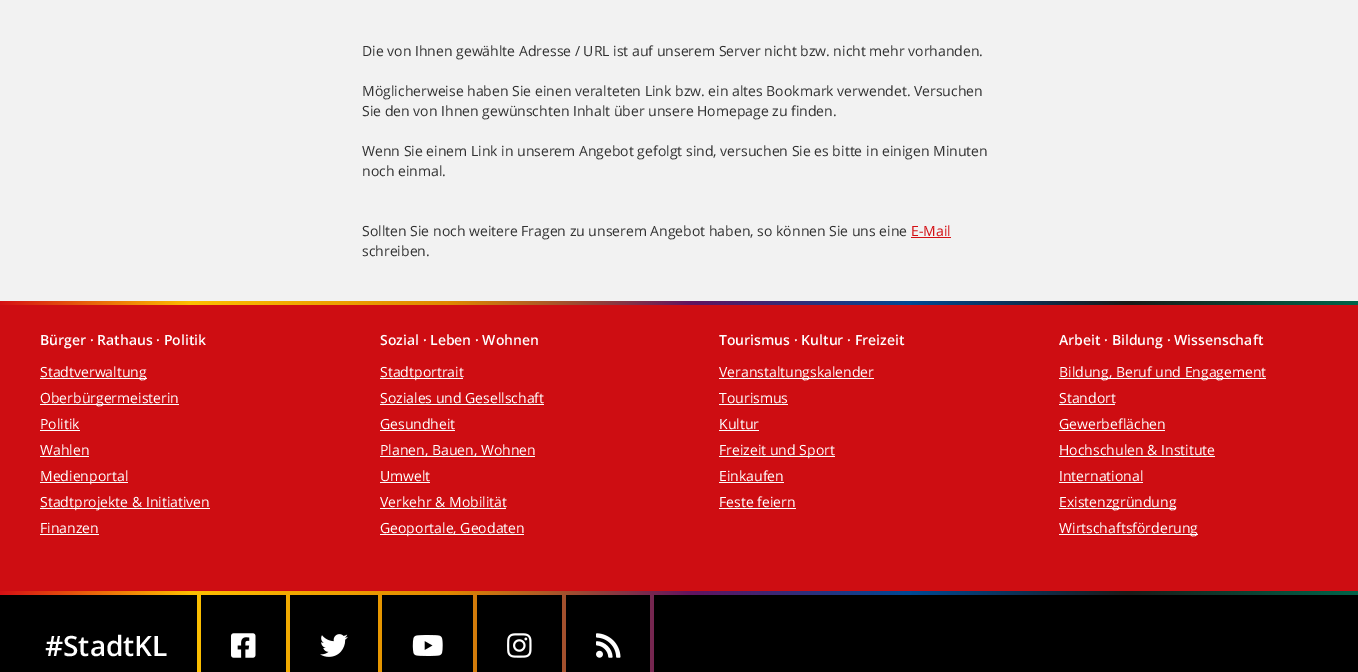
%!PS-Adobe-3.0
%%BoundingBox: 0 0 1358 672
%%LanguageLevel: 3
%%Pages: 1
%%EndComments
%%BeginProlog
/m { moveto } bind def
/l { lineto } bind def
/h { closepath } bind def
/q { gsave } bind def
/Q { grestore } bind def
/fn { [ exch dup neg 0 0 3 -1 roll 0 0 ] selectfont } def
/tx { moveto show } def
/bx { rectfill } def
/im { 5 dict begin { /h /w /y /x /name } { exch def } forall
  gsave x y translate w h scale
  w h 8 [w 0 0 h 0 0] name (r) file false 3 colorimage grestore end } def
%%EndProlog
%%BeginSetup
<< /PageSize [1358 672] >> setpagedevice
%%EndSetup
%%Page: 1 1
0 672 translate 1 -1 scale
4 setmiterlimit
0.949 setgray
0 0 1358 672 bx
/OpenSans-Regular 14 fn
0.2 setgray
(Die von Ihnen gewählte Adresse / URL ist auf unserem Server nicht bzw. nicht mehr vorhanden.) 362 56 tx
(Möglicherweise haben Sie einen veralteten Link bzw. ein altes Bookmark verwendet. Versuchen) 362 96 tx
(Sie den von Ihnen gewünschten Inhalt über unsere Homepage zu finden.) 362 116 tx
(Wenn Sie einem Link in unserem Angebot gefolgt sind, versuchen Sie es bitte in einigen Minuten) 362 156 tx
(noch einmal.) 362 176 tx
(Sollten Sie noch weitere Fragen zu unserem Angebot haben, so können Sie uns eine) 362 236 tx
0.831 0.059 0.078 setrgbcolor
(E-Mail) 911 236 tx
911 237 40 1 bx
0.2 setgray
(schreiben.) 362 256 tx
q 0 301 m 1358 301 l 1358 305 l 0 305 l h clip newpath
<< /ShadingType 2 /ColorSpace /DeviceRGB /Coords [0 303 1358 303] /Extend [true true] /Function << /FunctionType 3 /Domain [0 1] /Functions [<< /FunctionType 2 /Domain [0 1] /C0 [0.835 0.063 0.082] /C1 [0.988 0.749 0] /N 1 >> << /FunctionType 2 /Domain [0 1] /C0 [0.988 0.749 0] /C1 [0.878 0.533 0] /N 1 >> << /FunctionType 2 /Domain [0 1] /C0 [0.878 0.533 0] /C1 [0.38 0.078 0.376] /N 1 >> << /FunctionType 2 /Domain [0 1] /C0 [0.38 0.078 0.376] /C1 [0 0.286 0.576] /N 1 >> << /FunctionType 2 /Domain [0 1] /C0 [0 0.286 0.576] /C1 [0.102 0.102 0.094] /N 1 >> << /FunctionType 2 /Domain [0 1] /C0 [0.102 0.102 0.094] /C1 [0 0.396 0.29] /N 1 >>] /Bounds [0.14 0.33 0.51 0.67 0.83] /Encode [0 1 0 1 0 1 0 1 0 1 0 1] >> >> shfill Q
0.808 0.051 0.071 setrgbcolor
0 305 1358 286 bx
/OpenSans-SemiBold 14 fn
1 setgray
(Bürger · Rathaus · Politik) 40 345 tx
40 378 107 1 bx
/OpenSans-Regular 14 fn
(Stadtverwaltung) 40 377 tx
40 404 139 1 bx
(Oberbürgermeisterin) 40 403 tx
(Politik) 40 429 tx
40 430 40 1 bx
(Wahlen) 40 455 tx
40 456 49 1 bx
40 482 88 1 bx
(Medienportal) 40 481 tx
40 508 170 1 bx
(Stadtprojekte & Initiativen) 40 507 tx
(Finanzen) 40 533 tx
40 534 59 1 bx
/OpenSans-SemiBold 14 fn
(Sozial · Leben · Wohnen) 380 345 tx
380 378 83 1 bx
/OpenSans-Regular 14 fn
(Stadtportrait) 380 377 tx
(Soziales und Gesellschaft) 380 403 tx
380 404 164 1 bx
(Gesundheit) 380 429 tx
380 430 75 1 bx
380 456 155 1 bx
(Planen, Bauen, Wohnen) 380 455 tx
(Umwelt) 380 481 tx
380 482 50 1 bx
(Verkehr & Mobilität) 380 507 tx
380 508 126 1 bx
380 534 144 1 bx
(Geoportale, Geodaten) 380 533 tx
/OpenSans-SemiBold 14 fn
(Tourismus · Kultur · Freizeit) 719 345 tx
719 378 155 1 bx
/OpenSans-Regular 14 fn
(Veranstaltungskalender) 719 377 tx
(Tourismus) 719 403 tx
719 404 69 1 bx
(Kultur) 719 429 tx
719 430 40 1 bx
719 456 116 1 bx
(Freizeit und Sport) 719 455 tx
(Einkaufen) 719 481 tx
719 482 65 1 bx
(Feste feiern) 719 507 tx
719 508 77 1 bx
/OpenSans-SemiBold 14 fn
(Arbeit · Bildung · Wissenschaft) 1059 345 tx
1059 378 207 1 bx
/OpenSans-Regular 14 fn
(Bildung, Beruf und Engagement) 1059 377 tx
(Standort) 1059 403 tx
1059 404 56 1 bx
(Gewerbeflächen) 1059 429 tx
1059 430 106 1 bx
(Hochschulen & Institute) 1059 455 tx
1059 456 156 1 bx
(International) 1059 481 tx
1059 482 84 1 bx
1059 508 117 1 bx
(Existenzgründung) 1059 507 tx
1059 534 139 1 bx
(Wirtschaftsförderung) 1059 533 tx
q 0 591 m 1358 591 l 1358 595 l 0 595 l h clip newpath
<< /ShadingType 2 /ColorSpace /DeviceRGB /Coords [0 593 1358 593] /Extend [true true] /Function << /FunctionType 3 /Domain [0 1] /Functions [<< /FunctionType 2 /Domain [0 1] /C0 [0.835 0.063 0.082] /C1 [0.988 0.749 0] /N 1 >> << /FunctionType 2 /Domain [0 1] /C0 [0.988 0.749 0] /C1 [0.878 0.533 0] /N 1 >> << /FunctionType 2 /Domain [0 1] /C0 [0.878 0.533 0] /C1 [0.38 0.078 0.376] /N 1 >> << /FunctionType 2 /Domain [0 1] /C0 [0.38 0.078 0.376] /C1 [0 0.286 0.576] /N 1 >> << /FunctionType 2 /Domain [0 1] /C0 [0 0.286 0.576] /C1 [0.102 0.102 0.094] /N 1 >> << /FunctionType 2 /Domain [0 1] /C0 [0.102 0.102 0.094] /C1 [0 0.396 0.29] /N 1 >>] /Bounds [0.14 0.33 0.51 0.67 0.83] /Encode [0 1 0 1 0 1 0 1 0 1 0 1] >> >> shfill Q
q 197 595 m 654 595 l 654 672 l 197 672 l h clip newpath
<< /ShadingType 2 /ColorSpace /DeviceRGB /Coords [0 645 1358 645] /Extend [true true] /Function << /FunctionType 3 /Domain [0 1] /Functions [<< /FunctionType 2 /Domain [0 1] /C0 [0.835 0.063 0.082] /C1 [0.988 0.749 0] /N 1 >> << /FunctionType 2 /Domain [0 1] /C0 [0.988 0.749 0] /C1 [0.878 0.533 0] /N 1 >> << /FunctionType 2 /Domain [0 1] /C0 [0.878 0.533 0] /C1 [0.38 0.078 0.376] /N 1 >> << /FunctionType 2 /Domain [0 1] /C0 [0.38 0.078 0.376] /C1 [0 0.286 0.576] /N 1 >> << /FunctionType 2 /Domain [0 1] /C0 [0 0.286 0.576] /C1 [0.102 0.102 0.094] /N 1 >> << /FunctionType 2 /Domain [0 1] /C0 [0.102 0.102 0.094] /C1 [0 0.396 0.29] /N 1 >>] /Bounds [0.14 0.33 0.51 0.67 0.83] /Encode [0 1 0 1 0 1 0 1 0 1 0 1] >> >> shfill Q
0 setgray
0 595 197 77 bx
201 595 85 77 bx
(image0.raw) 231 633 25 25 im
290 595 88 77 bx
(image1.raw) 320 634 28 23 im
382 595 91 77 bx
(image2.raw) 412 635 31 21 im
477 595 85 77 bx
(image3.raw) 507 633 25 25 im
566 595 84 77 bx
(image4.raw) 596 633 25 25 im
654 595 704 77 bx
/OpenSans-SemiBold 28 fn
1 setgray
(#StadtKL) 45 656 tx
showpage
%%EOF
